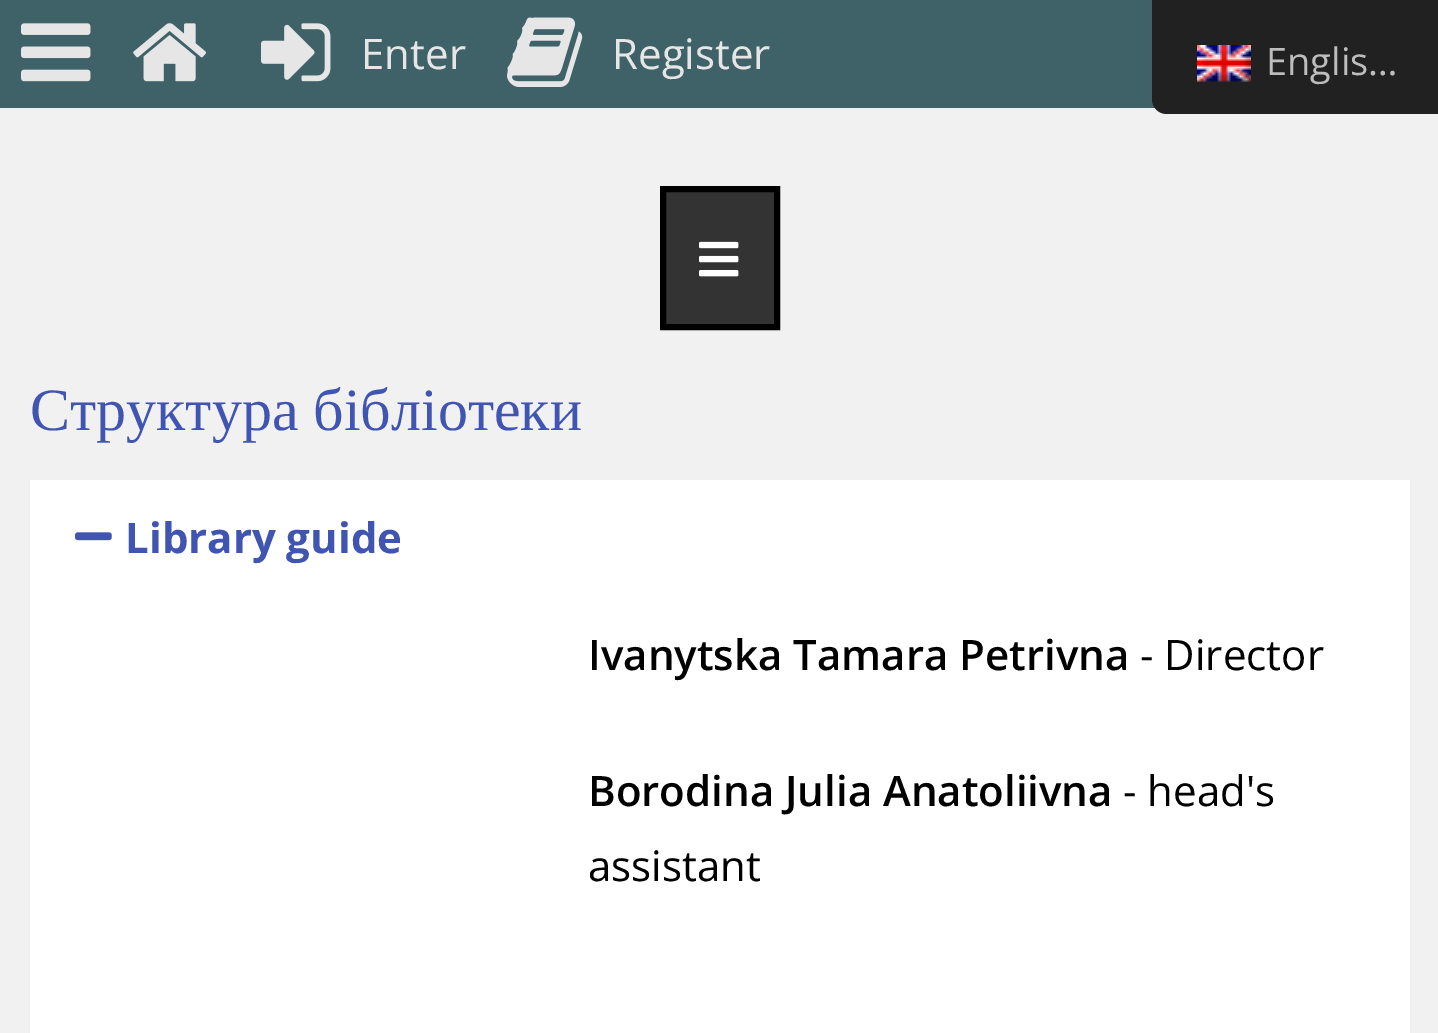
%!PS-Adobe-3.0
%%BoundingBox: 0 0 1438 1033
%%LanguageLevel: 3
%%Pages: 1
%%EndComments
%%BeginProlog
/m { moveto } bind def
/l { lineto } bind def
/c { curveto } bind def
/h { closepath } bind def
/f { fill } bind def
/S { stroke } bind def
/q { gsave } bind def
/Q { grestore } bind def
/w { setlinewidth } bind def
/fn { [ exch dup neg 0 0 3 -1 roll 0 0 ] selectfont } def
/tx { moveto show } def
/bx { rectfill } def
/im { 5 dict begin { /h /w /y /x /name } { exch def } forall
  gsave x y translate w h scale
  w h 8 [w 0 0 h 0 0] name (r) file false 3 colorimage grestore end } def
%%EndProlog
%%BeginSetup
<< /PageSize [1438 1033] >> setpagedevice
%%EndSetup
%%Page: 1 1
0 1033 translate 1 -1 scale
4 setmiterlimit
0.945 setgray
0 0 1438 1033 bx
0.247 0.38 0.408 setrgbcolor
0 0 1155 108 bx
(image0.raw) 21 23 70 59 im
(image1.raw) 133 23 73 59 im
(image2.raw) 261 23 70 59 im
/OpenSans-Regular 42 fn
0.902 setgray
(Enter) 361 69 tx
(image3.raw) 507 17 76 70 im
(Register) 612 69 tx
0.129 setgray
1152 0 m 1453 0 l 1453 99 l 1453 107.5 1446.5 114 1438 114 c 1167 114 l 1158.5 114 1152 107.5 1152 99 c h f
(image4.raw) 1197 45 54 37 im
/OpenSans-Regular 38 fn
0.741 setgray
(Englis…) 1266 75 tx
0.2 setgray
663 189 m 777 189 l 777 327 l 663 327 l h q f Q
0 setgray
6 w
S
(image5.raw) 699 241 40 36 im
/LiberationSerif-Regular 60 fn
0.251 0.329 0.698 setrgbcolor
(Структура бібліотеки) 30 430 tx
1 setgray
30 480 1380 553 bx
(image6.raw) 75 532 37 9 im
/OpenSans-Bold 42 fn
0.251 0.329 0.698 setrgbcolor
(Library guide) 125 553 tx
/OpenSans-SemiBold 42 fn
0 setgray
(Ivanytska Tamara Petrivna) 588 670 tx
/OpenSans-Regular 42 fn
(- Director) 1140 670 tx
/OpenSans-SemiBold 42 fn
(Borodina Julia Anatoliivna) 588 806 tx
/OpenSans-Regular 42 fn
(- head's) 1123 806 tx
(assistant) 588 881 tx
showpage
%%EOF
